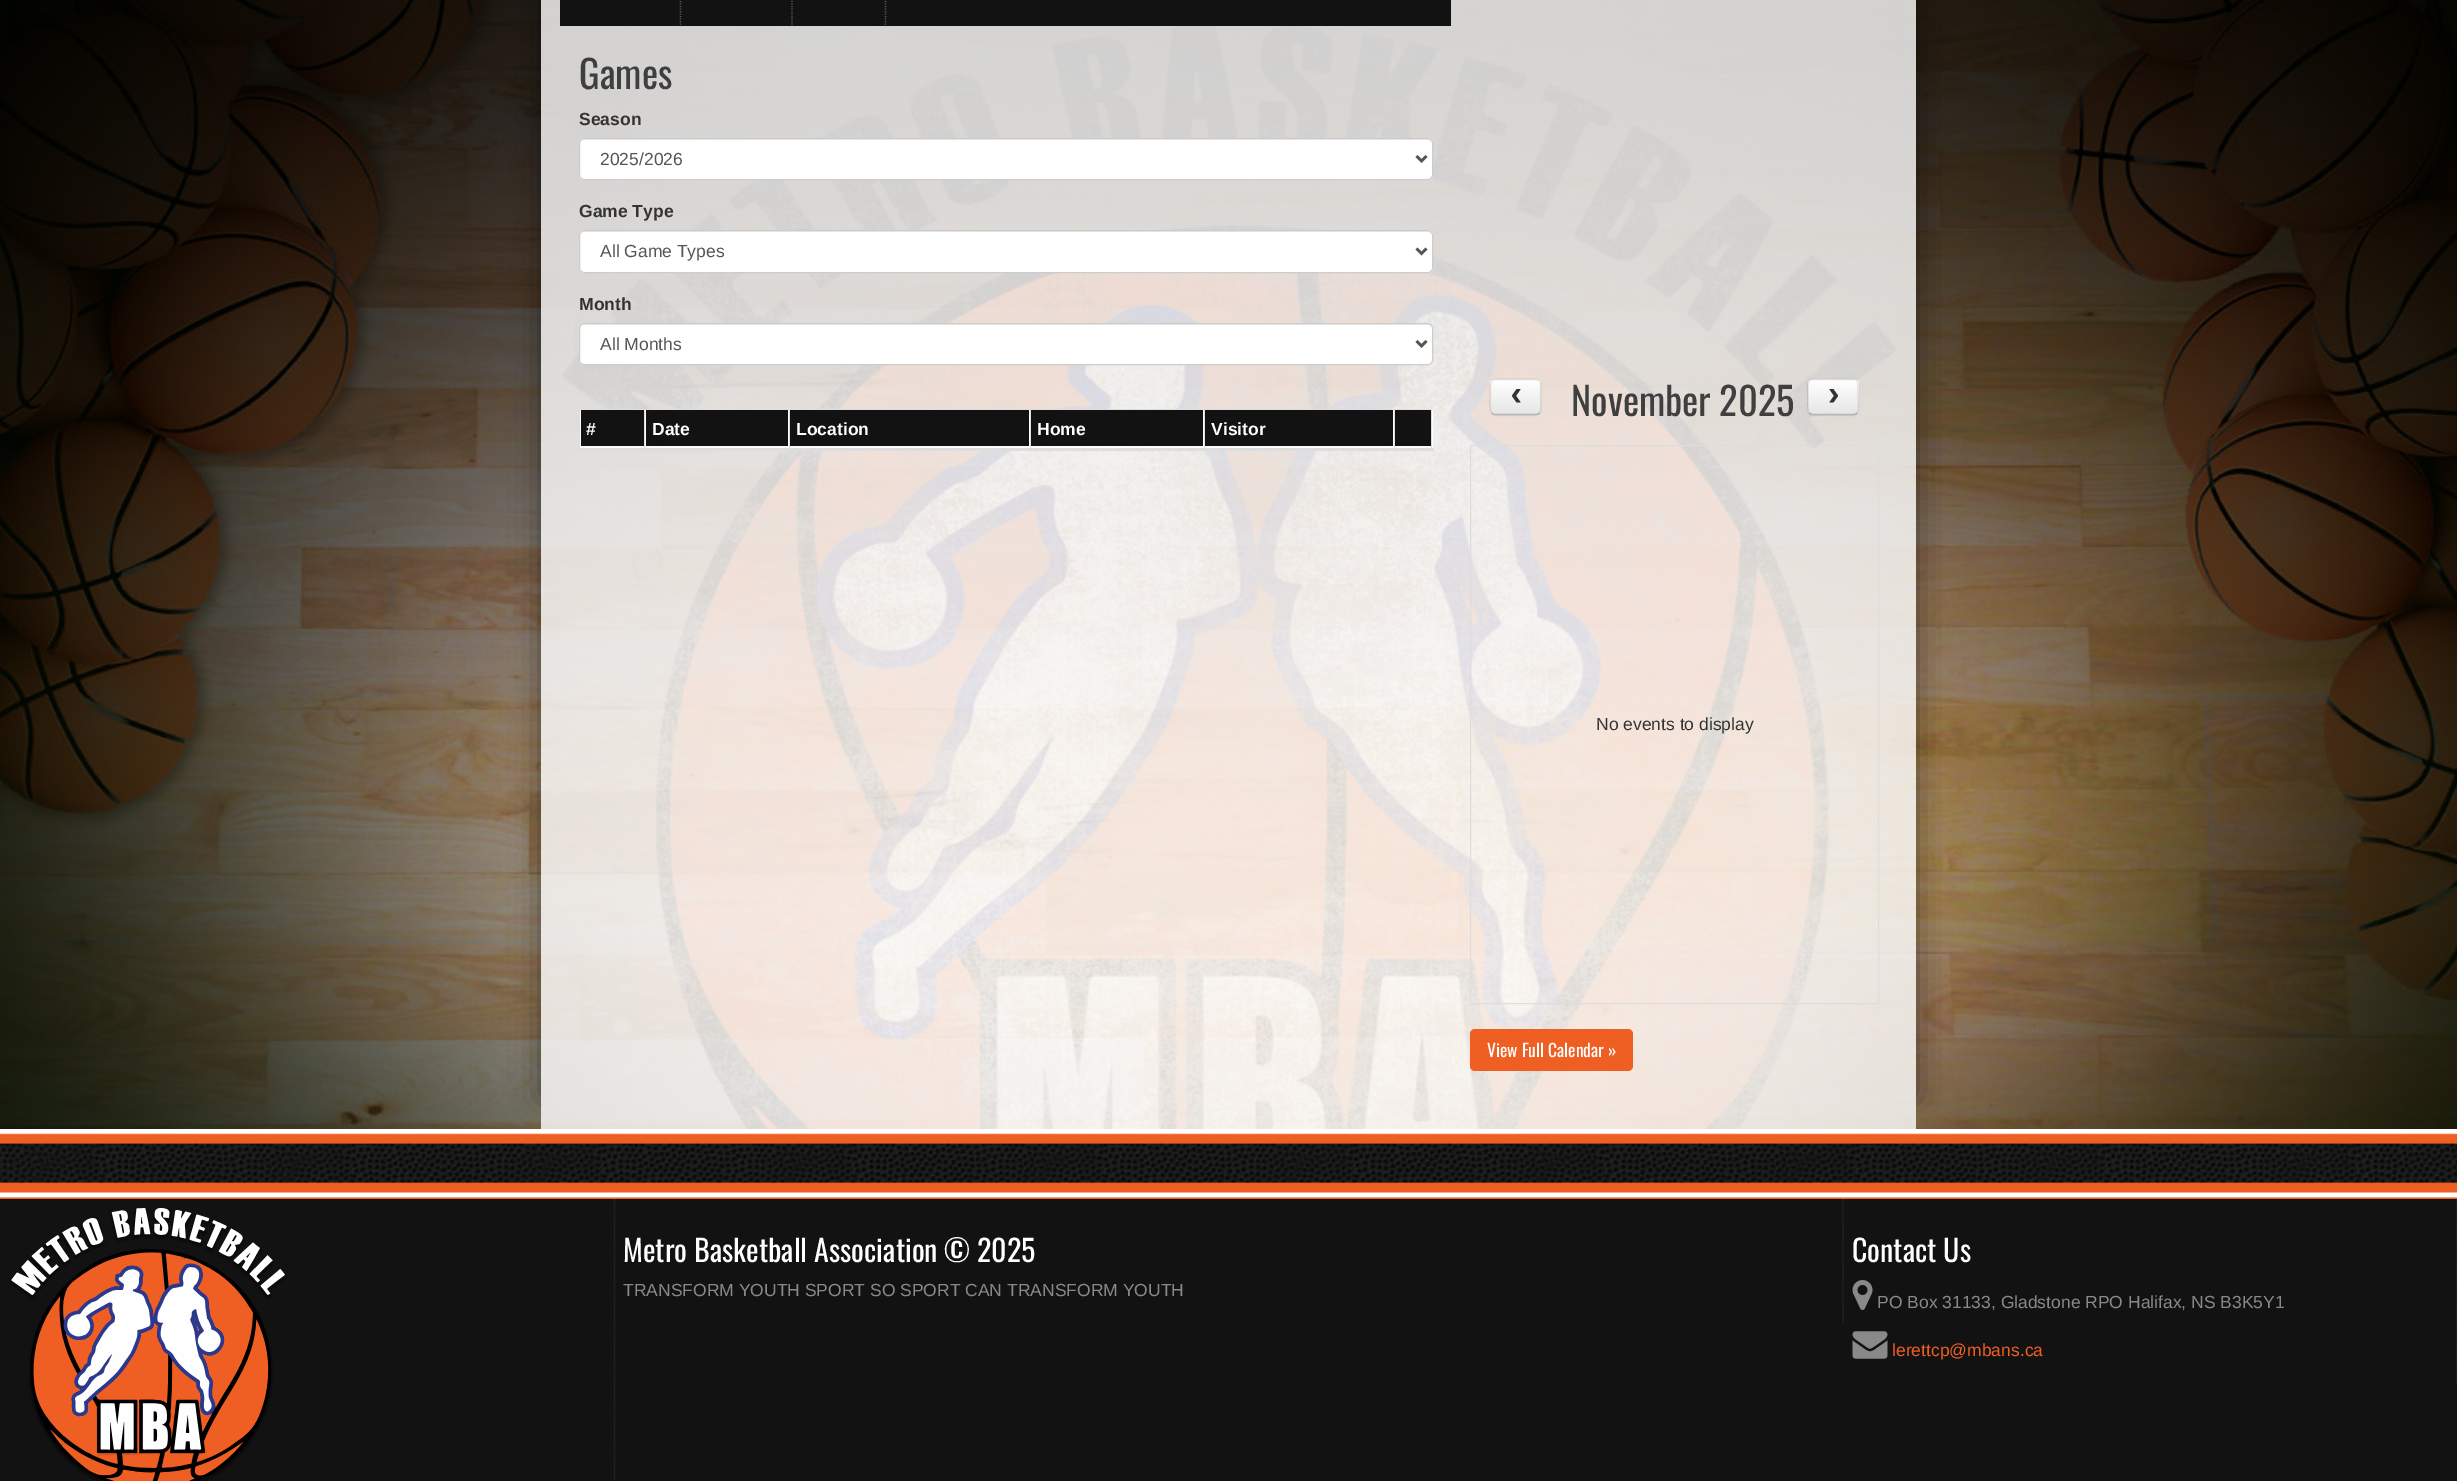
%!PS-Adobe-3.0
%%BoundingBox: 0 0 2457 1481
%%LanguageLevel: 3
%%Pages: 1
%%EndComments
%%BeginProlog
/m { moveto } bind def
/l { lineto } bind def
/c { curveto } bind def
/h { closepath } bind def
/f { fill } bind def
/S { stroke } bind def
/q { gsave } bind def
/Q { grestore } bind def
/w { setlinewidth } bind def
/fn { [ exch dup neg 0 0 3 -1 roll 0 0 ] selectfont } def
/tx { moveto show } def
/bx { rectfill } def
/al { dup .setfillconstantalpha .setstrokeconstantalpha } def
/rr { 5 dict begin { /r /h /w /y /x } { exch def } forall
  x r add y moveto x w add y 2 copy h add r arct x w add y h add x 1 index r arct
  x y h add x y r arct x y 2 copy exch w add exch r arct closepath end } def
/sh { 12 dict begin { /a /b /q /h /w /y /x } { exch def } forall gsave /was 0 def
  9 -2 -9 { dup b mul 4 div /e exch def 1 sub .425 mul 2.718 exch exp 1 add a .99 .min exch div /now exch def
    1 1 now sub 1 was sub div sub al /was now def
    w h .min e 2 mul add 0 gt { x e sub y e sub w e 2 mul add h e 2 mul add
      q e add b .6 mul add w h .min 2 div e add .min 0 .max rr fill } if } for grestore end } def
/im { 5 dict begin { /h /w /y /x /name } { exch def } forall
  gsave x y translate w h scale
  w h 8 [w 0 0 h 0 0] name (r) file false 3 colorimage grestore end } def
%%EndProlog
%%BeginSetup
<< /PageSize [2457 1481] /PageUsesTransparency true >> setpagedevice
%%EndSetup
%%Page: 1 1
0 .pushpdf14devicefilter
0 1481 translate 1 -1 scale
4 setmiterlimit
1 setgray
0 0 2457 1481 bx
(image0.raw) 0 0 2457 1129 im
q
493 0 m 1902 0 l 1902 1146 l 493 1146 l h 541 -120 m 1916 -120 l 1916 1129 l 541 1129 l h eoclip newpath
0 setgray
541 -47 1313 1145 0 15.5 0.45 sh
Q
q
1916 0 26 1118 rectclip
0 setgray
604 -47 1312 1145 0 15.5 0.45 sh
Q
0.8 al
541 0 1375 1129 bx
1 al
0.071 setgray
560 0 891 26 bx
0.349 setgray
1.2 w
[1.25 1.25] 0 setdash
680.5 -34 m 680.5 26 l S
792 -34 m 792 26 l S
885.5 -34 m 885.5 26 l S
/Oswald-Regular 38.5 fn
0.251 0.247 0.247 setrgbcolor
(Games) 579 89 tx
/LiberationSans-Bold 17.5 fn
0.2 setgray
(Season) 579 125 tx
1 setgray
579 138 854 42 5 rr f
0.925 setgray
584 140 m 1428 140 l 1430 140 1431 142 1431 144 c 1431 141 1430 139 1427 139 c 584 139 l 581 139 580 141 580 144 c 580 142 582 140 584 140 c h f
0.8 setgray
1 w
[] 0 setdash
579.5 138.5 853 41 4.5 rr S
0.333 setgray
2.5 w
1416.5 156 m 1421.5 161 l 1426.5 156 l S
/LiberationSans-Regular 17.5 fn
(2025/2026) 600 165 tx
/LiberationSans-Bold 17.5 fn
0.2 setgray
(Game Type) 579 217 tx
1 setgray
579 230 854 43 5 rr f
0.925 setgray
584 232 m 1428 232 l 1430 232 1431 234 1431 236 c 1431 233 1430 231 1427 231 c 584 231 l 581 231 580 233 580 236 c 580 234 582 232 584 232 c h f
0.8 setgray
1 w
579.5 230.5 853 42 4.5 rr S
0.333 setgray
2.5 w
1416.5 248.5 m 1421.5 253.5 l 1426.5 248.5 l S
/LiberationSans-Regular 17.5 fn
(All Game Types) 600 257 tx
/LiberationSans-Bold 17.5 fn
0.2 setgray
(Month) 579 310 tx
1 setgray
579 323 854 42 5 rr f
0.925 setgray
584 325 m 1428 325 l 1430 325 1431 327 1431 329 c 1431 326 1430 324 1427 324 c 584 324 l 581 324 580 326 580 329 c 580 327 582 325 584 325 c h f
0.8 setgray
1 w
579.5 323.5 853 41 4.5 rr S
0.333 setgray
2.5 w
1416.5 341 m 1421.5 346 l 1426.5 341 l S
/LiberationSans-Regular 17.5 fn
(All Months) 600 350 tx
0.867 setgray
579 409 854 1 bx
0.9 al
1 setgray
580 410 853 38 bx
1 al
0.867 setgray
1431 409 1 41 bx
579 409 1 41 bx
0.071 setgray
1395 410 36 36 bx
0.867 setgray
1394 409 1 40 bx
644 409 1 40 bx
789 409 1 40 bx
1030 409 1 40 bx
1204 409 1 40 bx
579 448 855 3 bx
0.071 setgray
581 410 63 36 bx
/LiberationSans-Bold 17.5 fn
1 setgray
(#) 586 435 tx
0.071 setgray
646 410 142 36 bx
1 setgray
(Date) 652 435 tx
0.071 setgray
790 410 239 36 bx
1 setgray
(Location) 796 435 tx
0.071 setgray
1031 410 172 36 bx
1 setgray
(Home) 1037 435 tx
0.071 setgray
1205 410 188 36 bx
1 setgray
(Visitor) 1211 435 tx
0 setgray
1490 380 51 36 5 1 0.05 sh
0.961 setgray
1490 379 51 36 5 rr f
q
1490 379 51 36 5 rr clip newpath
q 1490 380 m 1541 380 l 1541 414 l 1490 414 l h clip newpath
<< /ShadingType 2 /ColorSpace /DeviceRGB /Coords [1516 380 1516 414] /Extend [true true] /Function << /FunctionType 2 /Domain [0 1] /C0 [1 1 1] /C1 [0.902 0.902 0.902] /N 1 >> >> shfill Q
Q
0.25 al
0 setgray
1.2 w
1539.5 413 m 1538.5 414 1537.5 414.5 1536 414.5 c 1495 414.5 l 1494 414.5 1492.5 414 1492 413 c S
0.1 al
1492 413 m 1489.5 410.5 1490.5 400 1490.5 397 c 1490.5 388 l 1490.5 385 1490 380.5 1494 379.5 c 1537 379.5 l 1541.5 380.5 1540.5 385 1540.5 388 c 1540.5 397 l 1540.5 400 1542 410.5 1539.5 413 c S
q
1505 389 21 17 rectclip
/LiberationMono-Bold 35 fn
1 al
0.2 setgray
(‹) 1506 405 tx
Q
/Oswald-Regular 38.5 fn
1 al
0.251 0.247 0.247 setrgbcolor
(November 2025) 1571 416 tx
0 setgray
1808 380 51 36 5 1 0.05 sh
0.961 setgray
1808 379 51 36 5 rr f
q
1808 379 51 36 5 rr clip newpath
q 1808 380 m 1859 380 l 1859 414 l 1808 414 l h clip newpath
<< /ShadingType 2 /ColorSpace /DeviceRGB /Coords [1833 380 1833 414] /Extend [true true] /Function << /FunctionType 2 /Domain [0 1] /C0 [1 1 1] /C1 [0.902 0.902 0.902] /N 1 >> >> shfill Q
Q
0.25 al
0 setgray
1857 413 m 1856 414 1855 414.5 1854 414.5 c 1812.5 414.5 l 1811.5 414.5 1810 414 1809.5 413 c S
0.1 al
1809.5 413 m 1807 410.5 1808 400 1808 397 c 1808 388 l 1808 385 1807.5 380.5 1811.5 379.5 c 1854.5 379.5 l 1859 380.5 1858 385 1858 388 c 1858 397 l 1858 400 1859.5 410.5 1857 413 c S
q
1823 389 21 17 rectclip
/LiberationMono-Bold 35 fn
1 al
0.2 setgray
(›) 1823 405 tx
Q
1 al
0.867 setgray
1 w
1470.5 445.5 408 558 rectstroke
/LiberationSans-Regular 17.5 fn
0.2 setgray
(No events to display) 1596 730 tx
0.937 0.369 0.133 setrgbcolor
1470 1029 163 42 5 rr f
/Oswald-Regular 17.5 fn
1 setgray
(View Full Calendar ») 1487 1057 tx
0.937 0.369 0.133 setrgbcolor
0 1198 2457 1 bx
(image1.raw) 0 1129 2457 69 im
0.071 setgray
0 1199 2457 282 bx
0.165 setgray
1.2 w
[1.25 1.25] 0 setdash
614.5 1199 m 614.5 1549 l S
(image2.raw) 10 1208 276 273 im
1843 1199 m 1843 1324 l S
/Oswald-Regular 30 fn
1 setgray
(Metro Basketball Association © 2025) 623 1262 tx
/LiberationSans-Regular 17.5 fn
0.537 setgray
(TRANSFORM YOUTH SPORT SO SPORT CAN TRANSFORM YOUTH) 623 1296 tx
0.165 setgray
2457 1199 m 2457 1384 l S
/Oswald-Regular 30 fn
1 setgray
(Contact Us) 1852 1262 tx
(image3.raw) 1852 1280 21 30 im
/LiberationSans-Regular 17.5 fn
0.537 setgray
(PO Box 31133, Gladstone RPO Halifax, NS B3K5Y1) 1877 1308 tx
(image4.raw) 1852 1331 36 28 im
0.937 0.369 0.133 setrgbcolor
(lerettcp@mbans.ca) 1892 1356 tx
.poppdf14devicefilter showpage
%%EOF
